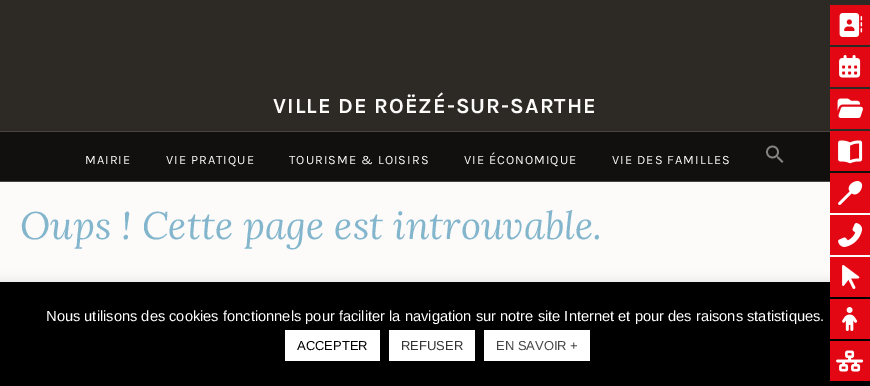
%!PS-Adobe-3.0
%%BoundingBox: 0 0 870 386
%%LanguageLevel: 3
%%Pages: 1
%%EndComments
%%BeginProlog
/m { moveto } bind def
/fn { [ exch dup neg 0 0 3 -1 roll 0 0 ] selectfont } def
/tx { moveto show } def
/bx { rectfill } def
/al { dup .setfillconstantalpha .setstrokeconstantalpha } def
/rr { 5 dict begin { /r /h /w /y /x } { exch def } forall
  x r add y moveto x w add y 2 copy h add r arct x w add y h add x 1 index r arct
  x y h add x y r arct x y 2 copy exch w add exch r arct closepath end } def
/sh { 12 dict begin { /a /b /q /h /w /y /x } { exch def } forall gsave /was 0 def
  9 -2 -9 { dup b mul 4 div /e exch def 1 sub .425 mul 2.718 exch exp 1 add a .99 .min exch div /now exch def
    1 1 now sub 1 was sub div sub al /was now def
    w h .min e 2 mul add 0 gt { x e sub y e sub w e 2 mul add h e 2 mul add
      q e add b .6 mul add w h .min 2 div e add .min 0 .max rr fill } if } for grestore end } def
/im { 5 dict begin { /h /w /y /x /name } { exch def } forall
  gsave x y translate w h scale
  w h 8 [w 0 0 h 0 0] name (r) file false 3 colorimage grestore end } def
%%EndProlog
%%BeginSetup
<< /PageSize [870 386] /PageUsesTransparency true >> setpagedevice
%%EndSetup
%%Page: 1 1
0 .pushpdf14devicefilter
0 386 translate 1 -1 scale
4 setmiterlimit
0.988 0.984 0.98 setrgbcolor
0 0 870 386 bx
0.176 0.165 0.149 setrgbcolor
0 0 870 131 bx
/Karla-Bold 21.6 fn
0.988 0.984 0.976 setrgbcolor
273 113 m 1 0 (VILLE DE ROËZÉ-SUR-SARTHE) ashow
0.286 0.267 0.239 setrgbcolor
0 131 830 1 bx
0 181 830 1 bx
0.067 0.063 0.059 setrgbcolor
0 132 870 49 bx
/Karla-Regular 12.75 fn
0.988 0.984 0.976 setrgbcolor
85 164 m 1 0 (MAIRIE) ashow
166 164 m 1 0 (VIE PRATIQUE) ashow
289 164 m 1 0 (TOURISME & LOISIRS) ashow
464 164 m 1 0 (VIE ÉCONOMIQUE) ashow
612 164 m 1 0 (VIE DES FAMILLES) ashow
(image0.raw) 766 145 18 18 im
/Lora-Italic 38.4 fn
0.514 0.714 0.8 setrgbcolor
(Oups ! Cette page est introuvable.) 20 239 tx
0.89 0.024 0.075 setrgbcolor
830 5 40 40 bx
(image1.raw) 839 13 24 24 im
830 47 40 40 bx
(image2.raw) 839 55 22 23 im
830 89 40 40 bx
(image3.raw) 837 98 26 20 im
830 131 40 40 bx
(image4.raw) 838 140 25 24 im
830 173 40 40 bx
(image5.raw) 838 181 25 24 im
830 215 40 40 bx
(image6.raw) 838 223 25 24 im
0.675 0.671 0.671 setrgbcolor
0 281 870 104 0 5 0.3 sh
0 setgray
0 282 870 104 bx
0.89 0.024 0.075 setrgbcolor
830 257 40 40 bx
(image7.raw) 842 265 18 24 im
830 299 40 40 bx
(image8.raw) 842 307 16 24 im
830 341 40 40 bx
(image9.raw) 836 350 28 22 im
/LiberationSans-Regular 14.67 fn
1 setgray
(Nous utilisons des cookies fonctionnels pour faciliter la navigation sur notre site Internet et pour des raisons statistiques.) 46 321 tx
285 330 95 31 bx
/LiberationSans-Regular 13 fn
0 setgray
(ACCEPTER) 297 350 tx
1 setgray
389 330 86 31 bx
0.2 setgray
(REFUSER) 401 350 tx
1 setgray
484 330 106 31 bx
0.267 setgray
(EN SAVOIR +) 496 350 tx
.poppdf14devicefilter showpage
%%EOF
